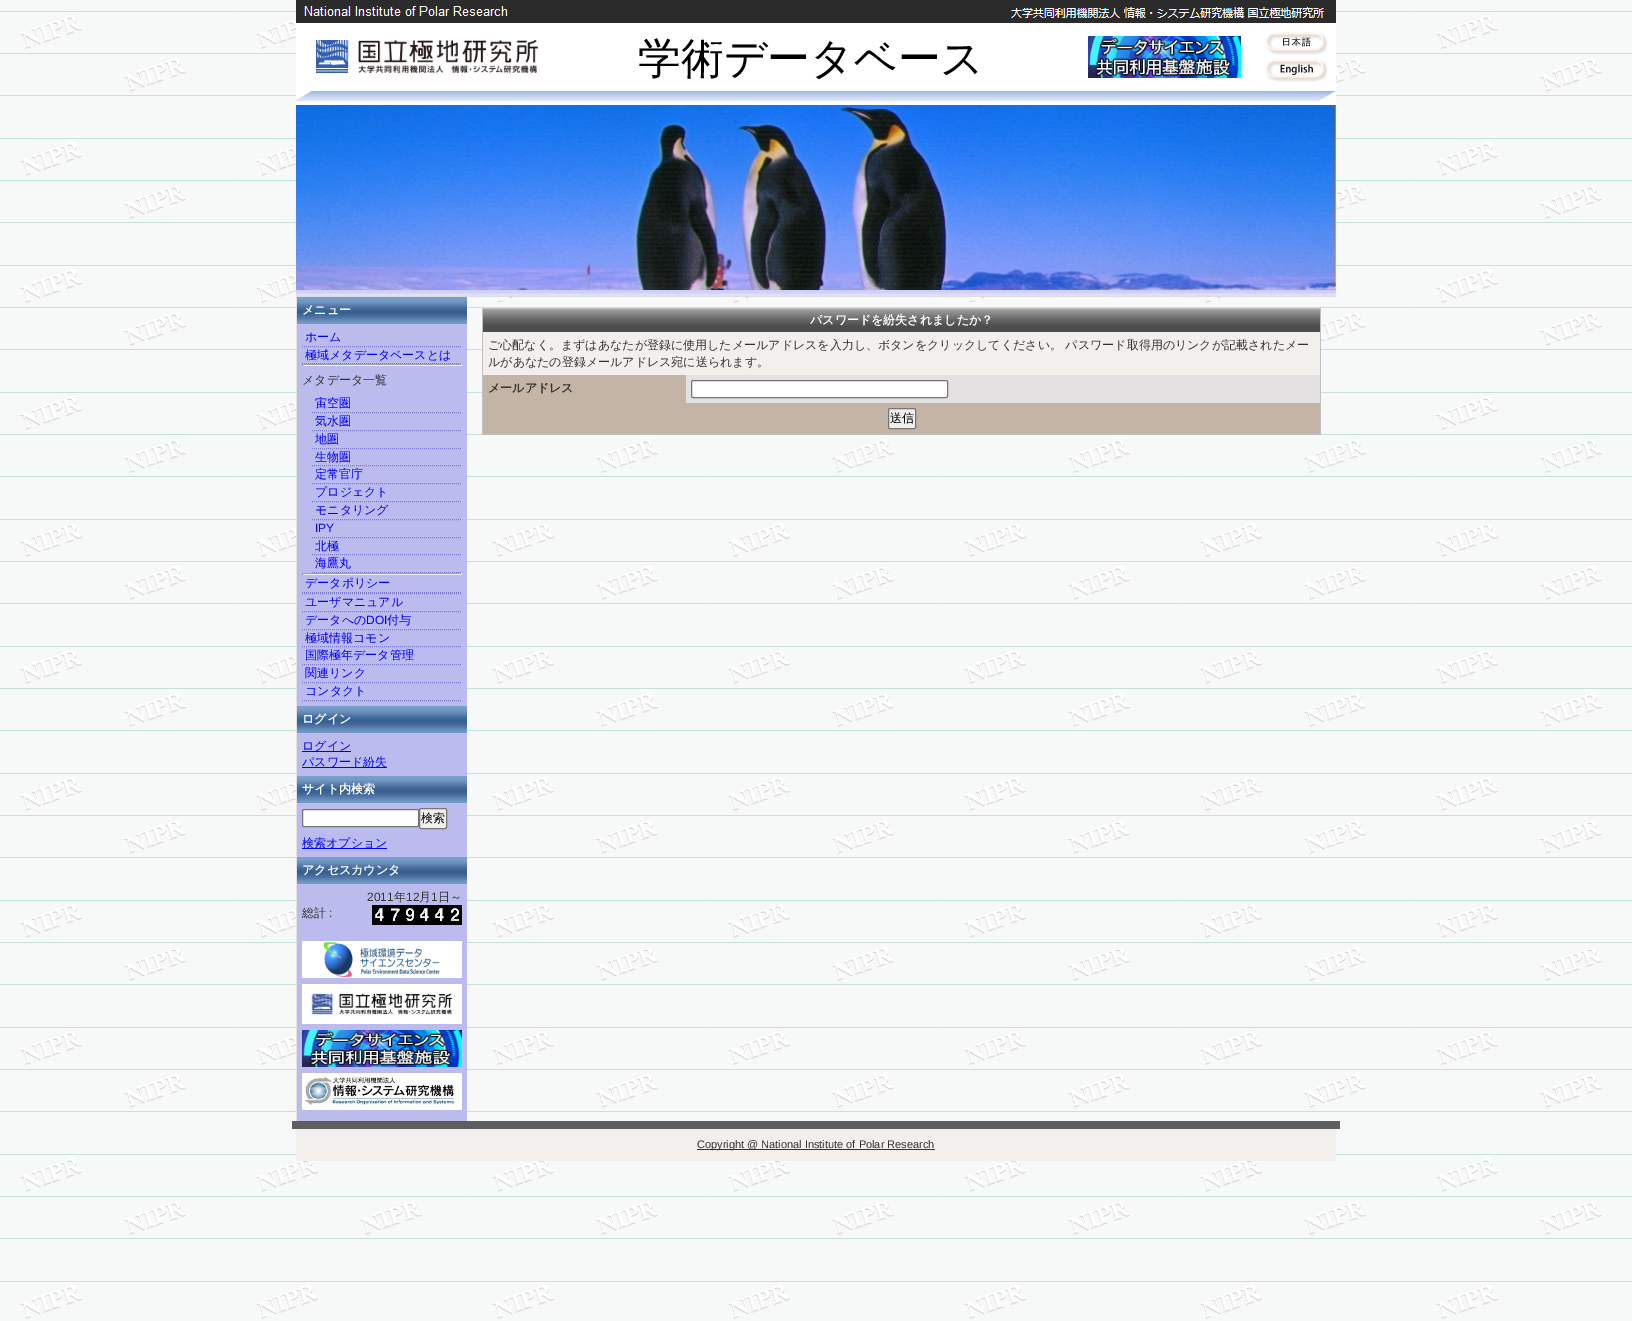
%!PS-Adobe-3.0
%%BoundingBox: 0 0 1632 1321
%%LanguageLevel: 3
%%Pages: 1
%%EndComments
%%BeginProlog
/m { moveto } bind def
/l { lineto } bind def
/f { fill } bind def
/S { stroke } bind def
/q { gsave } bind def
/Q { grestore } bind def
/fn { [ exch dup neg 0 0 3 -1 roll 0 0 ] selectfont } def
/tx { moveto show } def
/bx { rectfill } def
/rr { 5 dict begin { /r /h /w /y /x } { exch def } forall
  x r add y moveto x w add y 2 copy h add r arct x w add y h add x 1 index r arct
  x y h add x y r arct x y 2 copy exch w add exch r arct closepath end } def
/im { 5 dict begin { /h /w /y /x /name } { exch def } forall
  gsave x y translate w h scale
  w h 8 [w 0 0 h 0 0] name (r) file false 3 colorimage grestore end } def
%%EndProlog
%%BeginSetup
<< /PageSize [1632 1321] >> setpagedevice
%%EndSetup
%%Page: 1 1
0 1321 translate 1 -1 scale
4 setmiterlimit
1 setgray
0 0 1632 1321 bx
(image0.raw) 0 0 1632 1321 im
(image1.raw) 296 0 1040 23 im
296 23 1040 82 bx
(image2.raw) 316 40 222 33 im
/WenQuanYiZenHei-Medium 42.75 fn
0 setgray
(学術データベース) 638 73 tx
(image3.raw) 1088 36 153 42 im
(image4.raw) 1265 32 63 23 im
(image5.raw) 1265 59 63 23 im
(image6.raw) 296 91 1040 10 im
(image7.raw) 296 105 1040 185 im
(image8.raw) 296 290 1040 6 im
0.867 setgray
296 296 1040 1 bx
0.733 0.733 0.933 setrgbcolor
297 324 170 797 bx
0.89 0.882 0.882 setrgbcolor
296 297 1 825 bx
(image9.raw) 297 297 170 27 im
/WenQuanYiZenHei-Bold 12 fn
1 setgray
(メニュー) 302 314 tx
0.478 0.478 0.8 setrgbcolor
[1 1] 0 setdash
302 346.5 m 462 346.5 l S
/WenQuanYiZenHei-Medium 12 fn
0 0 1 setrgbcolor
(ホーム) 305 341 tx
0.478 0.478 0.8 setrgbcolor
302 363.5 m 462 363.5 l S
0 0 1 setrgbcolor
(極域メタデータベースとは) 305 359 tx
0.624 setgray
302 364 160 1 bx
0.933 setgray
461 364 1 2 bx
302 365 160 1 bx
0.624 setgray
302 364 1 2 bx
0.2 setgray
(メタデータ一覧) 302 384 tx
0.478 0.478 0.8 setrgbcolor
312 412.5 m 462 412.5 l S
0 0 1 setrgbcolor
(宙空圏) 315 407 tx
0.478 0.478 0.8 setrgbcolor
312 430.5 m 462 430.5 l S
0 0 1 setrgbcolor
(気水圏) 315 425 tx
0.478 0.478 0.8 setrgbcolor
312 448.5 m 462 448.5 l S
0 0 1 setrgbcolor
(地圏) 315 443 tx
0.478 0.478 0.8 setrgbcolor
312 465.5 m 462 465.5 l S
0 0 1 setrgbcolor
(生物圏) 315 461 tx
0.478 0.478 0.8 setrgbcolor
312 483.5 m 462 483.5 l S
0 0 1 setrgbcolor
(定常官庁) 315 478 tx
0.478 0.478 0.8 setrgbcolor
312 501.5 m 462 501.5 l S
0 0 1 setrgbcolor
(プロジェクト) 315 496 tx
0.478 0.478 0.8 setrgbcolor
312 519.5 m 462 519.5 l S
0 0 1 setrgbcolor
(モニタリング) 315 514 tx
0.478 0.478 0.8 setrgbcolor
312 537.5 m 462 537.5 l S
/LiberationSans-Regular 12 fn
0 0 1 setrgbcolor
(IPY) 315 532 tx
0.478 0.478 0.8 setrgbcolor
312 554.5 m 462 554.5 l S
/WenQuanYiZenHei-Medium 12 fn
0 0 1 setrgbcolor
(北極) 315 550 tx
0.478 0.478 0.8 setrgbcolor
312 572.5 m 462 572.5 l S
0 0 1 setrgbcolor
(海鷹丸) 315 567 tx
0.624 setgray
302 573 160 1 bx
0.933 setgray
461 573 1 2 bx
302 574 160 1 bx
0.624 setgray
302 573 1 2 bx
0.478 0.478 0.8 setrgbcolor
302 592.5 m 462 592.5 l S
0 0 1 setrgbcolor
(データポリシー) 305 587 tx
0.478 0.478 0.8 setrgbcolor
302 593.5 m 462 593.5 l S
302 611.5 m 462 611.5 l S
0 0 1 setrgbcolor
(ユーザマニュアル) 305 606 tx
0.478 0.478 0.8 setrgbcolor
302 629.5 m 462 629.5 l S
0 0 1 setrgbcolor
(データへの) 305 624 tx
/LiberationSans-Regular 12 fn
(DOI) 366 624 tx
/WenQuanYiZenHei-Medium 12 fn
(付与) 387 624 tx
0.478 0.478 0.8 setrgbcolor
302 646.5 m 462 646.5 l S
0 0 1 setrgbcolor
(極域情報コモン) 305 642 tx
0.478 0.478 0.8 setrgbcolor
302 664.5 m 462 664.5 l S
0 0 1 setrgbcolor
(国際極年データ管理) 305 659 tx
0.478 0.478 0.8 setrgbcolor
302 682.5 m 462 682.5 l S
0 0 1 setrgbcolor
(関連リンク) 305 677 tx
0.478 0.478 0.8 setrgbcolor
302 700.5 m 462 700.5 l S
0 0 1 setrgbcolor
(コンタクト) 305 695 tx
(image9.raw) 297 706 170 27 im
/WenQuanYiZenHei-Bold 12 fn
1 setgray
(ログイン) 302 723 tx
0 0 1 setrgbcolor
302 751 49 1 bx
/WenQuanYiZenHei-Medium 12 fn
(ログイン) 302 750 tx
302 767 85 1 bx
(パスワード紛失) 302 766 tx
(image9.raw) 297 776 170 27 im
/WenQuanYiZenHei-Bold 12 fn
1 setgray
(サイト内検索) 302 793 tx
302.5 809.5 116 17 1.5 rr q f Q
0.463 setgray
[] 0 setdash
S
0.937 setgray
419.5 808.5 27 20 1.5 rr q f Q
0.463 setgray
S
/WenQuanYiZenHei-Medium 12 fn
0 setgray
(検索) 421 822 tx
0 0 1 setrgbcolor
302 848 85 1 bx
(検索オプション) 302 847 tx
(image9.raw) 297 857 170 27 im
/WenQuanYiZenHei-Bold 12 fn
1 setgray
(アクセスカウンタ) 302 874 tx
/LiberationSans-Regular 12 fn
0.2 setgray
(2011) 367 901 tx
/WenQuanYiZenHei-Medium 12 fn
(年) 394 901 tx
/LiberationSans-Regular 12 fn
(12) 406 901 tx
/WenQuanYiZenHei-Medium 12 fn
(月) 419 901 tx
/LiberationSans-Regular 12 fn
(1) 431 901 tx
/WenQuanYiZenHei-Medium 12 fn
(日～) 438 901 tx
(総計) 302 917 tx
/LiberationSans-Regular 12 fn
(:) 329 917 tx
(image10.raw) 372 905 15 20 im
(image11.raw) 387 905 15 20 im
(image12.raw) 402 905 15 20 im
(image10.raw) 417 905 15 20 im
(image10.raw) 432 905 15 20 im
(image13.raw) 447 905 15 20 im
(image14.raw) 302 941 160 37 im
(image15.raw) 302 984 160 40 im
(image16.raw) 302 1030 160 37 im
(image17.raw) 302 1073 160 37 im
0.753 setgray
482 308 839 1 bx
1320 308 1 127 bx
482 434 839 1 bx
482 308 1 127 bx
(image18.raw) 483 309 837 23 im
/WenQuanYiZenHei-Bold 12 fn
1 setgray
(パスワードを紛失されましたか？) 810 324 tx
0.949 0.937 0.929 setrgbcolor
483 332 837 43 bx
/WenQuanYiZenHei-Medium 12 fn
0.2 setgray
(ご心配なく。まずはあなたが登録に使用したメールアドレスを入力し、ボタンをクリックしてください。 パスワード取得用のリンクが記載されたメー) 488 349 tx
(ルがあなたの登録メールアドレス宛に送られます。) 488 366 tx
0.769 0.706 0.647 setrgbcolor
483 375 203 28 bx
/WenQuanYiZenHei-Bold 12 fn
0.2 setgray
(メールアドレス) 488 392 tx
0.89 0.882 0.882 setrgbcolor
686 375 634 28 bx
1 setgray
691.5 380.5 256 17 1.5 rr q f Q
0.463 setgray
S
0.769 0.706 0.647 setrgbcolor
483 403 837 31 bx
0.937 setgray
888.5 408.5 27 20 1.5 rr q f Q
0.463 setgray
S
/WenQuanYiZenHei-Medium 12 fn
0 setgray
(送信) 890 422 tx
0.949 0.937 0.929 setrgbcolor
296 1129 1040 32 bx
0.369 0.369 0.376 setrgbcolor
292 1121 1048 8 bx
0.2 setgray
697 1149 238 1 bx
/LiberationSans-Regular 11 fn
(Copyright @ National Institute of Polar Research) 697 1148 tx
showpage
%%EOF
